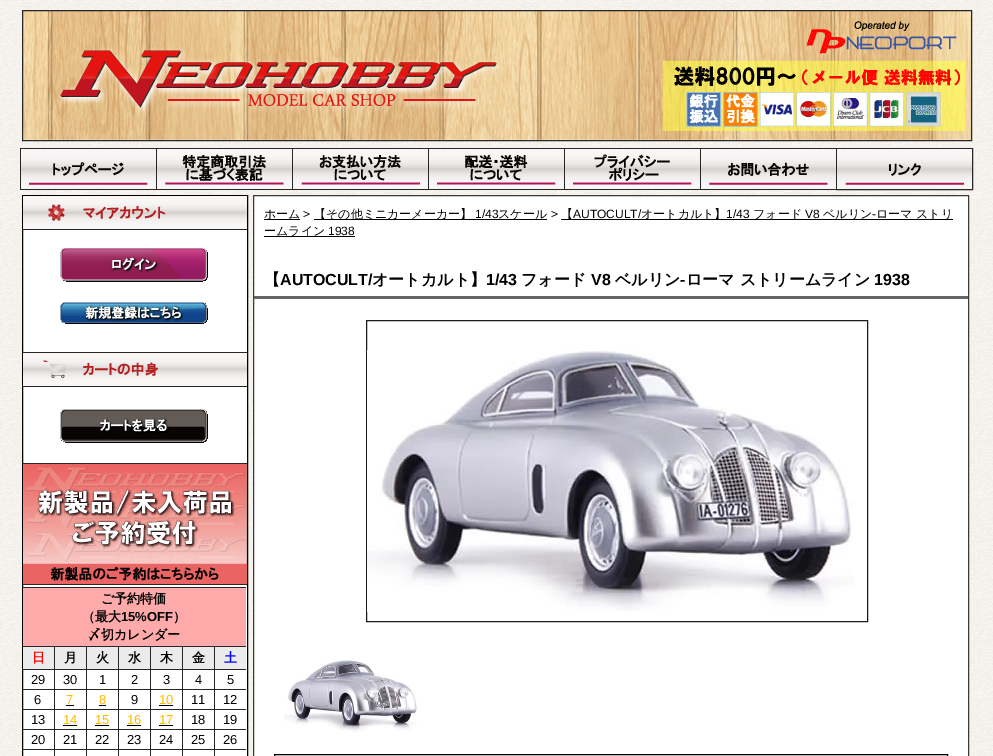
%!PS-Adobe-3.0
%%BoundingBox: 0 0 993 756
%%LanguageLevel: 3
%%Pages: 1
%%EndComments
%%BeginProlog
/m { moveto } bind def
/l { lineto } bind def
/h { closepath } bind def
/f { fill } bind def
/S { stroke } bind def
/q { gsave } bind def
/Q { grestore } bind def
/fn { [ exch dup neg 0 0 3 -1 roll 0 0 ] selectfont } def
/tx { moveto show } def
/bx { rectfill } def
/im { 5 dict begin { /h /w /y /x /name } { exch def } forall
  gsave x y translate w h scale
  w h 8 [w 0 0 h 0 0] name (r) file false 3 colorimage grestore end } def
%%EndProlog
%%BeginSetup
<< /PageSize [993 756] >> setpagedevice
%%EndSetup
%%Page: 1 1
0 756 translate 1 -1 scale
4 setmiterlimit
1 setgray
0 0 993 756 bx
(image0.raw) 0 0 993 756 im
(image1.raw) 23 11 948 129 im
0.153 setgray
22.5 10.5 949 130 rectstroke
(image2.raw) 58 47 444 67 im
20 148 816 1 bx
20 189 816 1 bx
20 148 1 42 bx
(image3.raw) 21 149 135 40 im
156 148 1 42 bx
(image4.raw) 157 149 135 40 im
292 148 1 42 bx
(image5.raw) 293 149 135 40 im
428 148 1 42 bx
(image6.raw) 429 149 135 40 im
564 148 1 42 bx
(image7.raw) 565 149 135 40 im
700 148 1 42 bx
(image8.raw) 701 149 135 40 im
836.5 148.5 136 41 rectstroke
(image9.raw) 837 149 135 40 im
1 setgray
253.5 195.5 m 968.5 195.5 l 968.5 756.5 l 253.5 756.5 l h q f Q
0.231 setgray
S
0 setgray
264 219 36 1 bx
/WenQuanYiZenHei-Medium 12 fn
(ホーム) 264 218 tx
/LiberationSans-Regular 12 fn
(>) 303 218 tx
314 219 233 1 bx
/WenQuanYiZenHei-Medium 12 fn
(【その他ミニカーメーカー】) 314 218 tx
/LiberationSans-Regular 12 fn
(1/43) 475 218 tx
/WenQuanYiZenHei-Medium 12 fn
(スケール) 498 218 tx
/LiberationSans-Regular 12 fn
(>) 551 218 tx
561 219 392 1 bx
/WenQuanYiZenHei-Medium 12 fn
(【) 561 218 tx
/LiberationSans-Regular 12 fn
(AUTOCULT/) 573 218 tx
/WenQuanYiZenHei-Medium 12 fn
(オートカルト】) 641 218 tx
/LiberationSans-Regular 12 fn
(1/43) 726 218 tx
/WenQuanYiZenHei-Medium 12 fn
(フォード) 753 218 tx
/LiberationSans-Regular 12 fn
(V8) 805 218 tx
/WenQuanYiZenHei-Medium 12 fn
(ベルリン) 823 218 tx
/LiberationSans-Regular 12 fn
(-) 872 218 tx
/WenQuanYiZenHei-Medium 12 fn
(ローマ ストリ) 876 218 tx
264 236 91 1 bx
(ームライン) 264 235 tx
/LiberationSans-Regular 12 fn
(1938) 328 235 tx
0.4 setgray
254 296 714 3 bx
/WenQuanYiZenHei-Bold 16 fn
0 setgray
(【) 264 285 tx
/LiberationSans-Bold 16 fn
(AUTOCULT/) 280 285 tx
/WenQuanYiZenHei-Bold 16 fn
(オートカルト】) 372 285 tx
/LiberationSans-Bold 16 fn
(1/43) 486 285 tx
/WenQuanYiZenHei-Bold 16 fn
(フォード) 521 285 tx
/LiberationSans-Bold 16 fn
(V8) 591 285 tx
/WenQuanYiZenHei-Bold 16 fn
(ベルリン) 615 285 tx
/LiberationSans-Bold 16 fn
(-) 680 285 tx
/WenQuanYiZenHei-Bold 16 fn
(ローマ ストリームライン) 686 285 tx
/LiberationSans-Bold 16 fn
(1938) 874 285 tx
0.106 setgray
366.5 320.5 501 301 rectstroke
(image10.raw) 367 350 488 262 im
(image11.raw) 284 660 133 72 im
0.969 0.965 0.961 setrgbcolor
274.5 754.5 m 947.5 754.5 l 947.5 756.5 l 274.5 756.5 l h q f Q
0 setgray
S
1 setgray
23 230 224 526 bx
0 setgray
22.5 195.5 225 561 rectstroke
0.153 setgray
23 229 224 1 bx
(image12.raw) 23 196 224 33 im
(image13.raw) 60 248 148 34 im
(image14.raw) 60 302 148 22 im
23 352 224 1 bx
23 386 224 1 bx
(image15.raw) 23 353 224 33 im
(image16.raw) 60 409 148 34 im
23 463 224 1 bx
23 584 224 1 bx
(image17.raw) 23 464 224 120 im
1 0.667 0.667 setrgbcolor
23 588 223 58 bx
0.153 setgray
23 587 223 1 bx
23 646 223 1 bx
/WenQuanYiZenHei-Bold 13 fn
0 setgray
(ご予約特価) 101 603 tx
(（最大) 82 621 tx
/LiberationSans-Bold 13 fn
(15%OFF) 121 621 tx
/WenQuanYiZenHei-Bold 13 fn
(）) 173 621 tx
(〆切カレンダー) 88 639 tx
0.922 setgray
23 647 223 22 bx
0.153 setgray
54 647 1 109 bx
23 669 32 1 bx
1 0 0 setrgbcolor
(日) 32 662 tx
0.153 setgray
86 647 1 109 bx
55 669 32 1 bx
0 setgray
(月) 64 662 tx
0.153 setgray
118 647 1 109 bx
87 669 32 1 bx
0 setgray
(火) 96 662 tx
0.153 setgray
150 647 1 109 bx
119 669 32 1 bx
0 setgray
(水) 128 662 tx
0.153 setgray
182 647 1 109 bx
151 669 32 1 bx
0 setgray
(木) 160 662 tx
0.153 setgray
214 647 1 109 bx
183 669 63 1 bx
0 setgray
(金) 192 662 tx
0 0 1 setrgbcolor
(土) 224 662 tx
0.153 setgray
23 689 223 1 bx
/LiberationSans-Regular 13 fn
0 setgray
(29) 31 684 tx
(30) 63 684 tx
(1) 99 684 tx
(2) 131 684 tx
(3) 163 684 tx
(4) 195 684 tx
(5) 227 684 tx
0.153 setgray
23 709 223 1 bx
0 setgray
(6) 34 704 tx
1 0.729 0 setrgbcolor
(7) 66 704 tx
0 setgray
66 705 8 1 bx
1 0.729 0 setrgbcolor
(8) 99 704 tx
0 setgray
99 705 7 1 bx
(9) 131 704 tx
1 0.729 0 setrgbcolor
(10) 159 704 tx
0 setgray
159 705 14 1 bx
(11) 191 704 tx
(12) 223 704 tx
0.153 setgray
23 729 223 1 bx
0 setgray
(13) 31 724 tx
1 0.729 0 setrgbcolor
(14) 63 724 tx
0 setgray
63 725 14 1 bx
1 0.729 0 setrgbcolor
(15) 95 724 tx
0 setgray
95 725 14 1 bx
1 0.729 0 setrgbcolor
(16) 127 724 tx
0 setgray
127 725 14 1 bx
1 0.729 0 setrgbcolor
(17) 159 724 tx
0 setgray
159 725 14 1 bx
(18) 191 724 tx
(19) 223 724 tx
0.153 setgray
23 749 223 1 bx
0 setgray
(20) 31 744 tx
(21) 63 744 tx
(22) 95 744 tx
(23) 127 744 tx
(24) 159 744 tx
(25) 191 744 tx
(26) 223 744 tx
showpage
%%EOF
